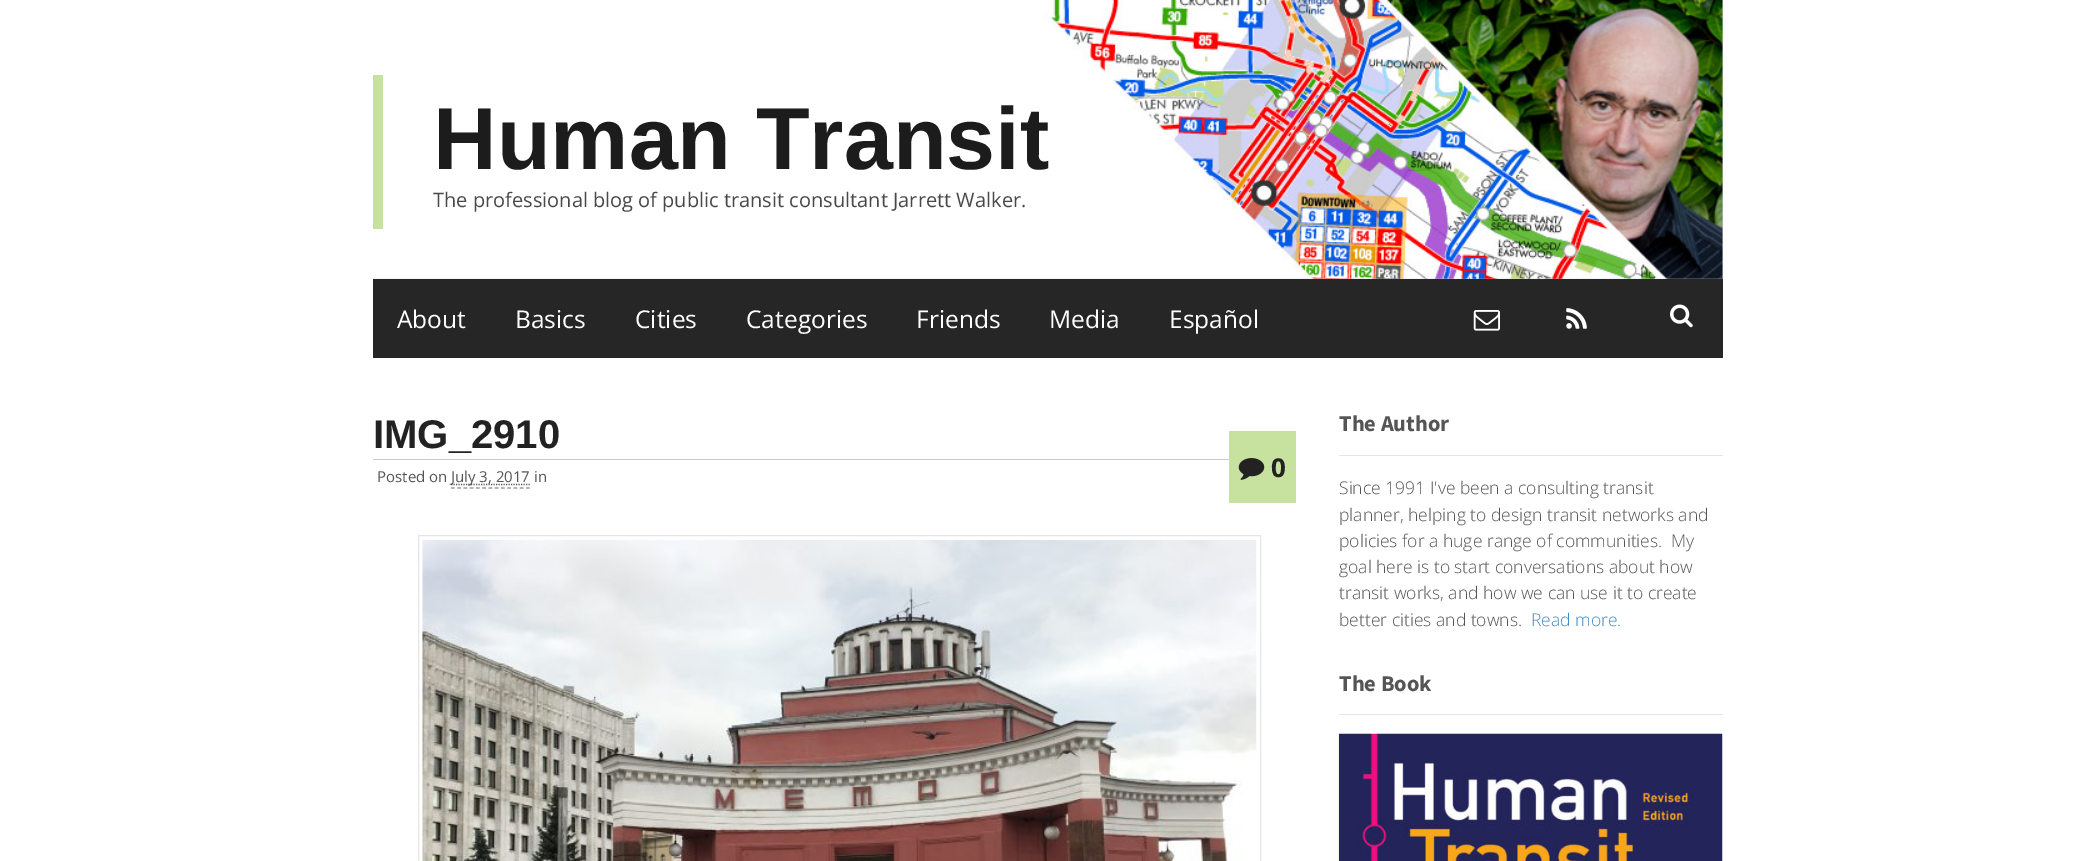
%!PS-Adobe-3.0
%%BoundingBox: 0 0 2095 861
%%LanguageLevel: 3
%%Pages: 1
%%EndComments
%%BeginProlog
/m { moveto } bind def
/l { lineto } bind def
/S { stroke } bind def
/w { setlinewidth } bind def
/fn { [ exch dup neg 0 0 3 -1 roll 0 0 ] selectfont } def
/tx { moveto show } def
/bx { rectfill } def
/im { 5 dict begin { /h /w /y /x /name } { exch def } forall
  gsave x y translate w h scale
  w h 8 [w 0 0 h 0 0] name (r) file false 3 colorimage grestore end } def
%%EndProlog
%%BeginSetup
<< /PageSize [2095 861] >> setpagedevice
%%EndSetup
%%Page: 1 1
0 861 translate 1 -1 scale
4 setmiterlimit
1 setgray
0 0 2095 861 bx
0.773 0.824 0.859 setrgbcolor
373 0 1350 279 bx
(image0.raw) 373 0 1350 279 im
0.78 0.882 0.62 setrgbcolor
373 75 10 154 bx
/LiberationSans-Bold 88 fn
0.11 setgray
(Human Transit) 433 169 tx
/OpenSans-Regular 20 fn
0.286 setgray
(The professional blog of public transit consultant Jarrett Walker.) 433 207 tx
0.149 setgray
373 279 1350 79 bx
/OpenSans-Regular 24.5 fn
1 setgray
(About) 397 328 tx
(Basics) 515 328 tx
(Cities) 635 328 tx
(Categories) 746 328 tx
(Friends) 916 328 tx
(Media) 1049 328 tx
(Español) 1169 328 tx
(image1.raw) 1473 310 27 21 im
(image2.raw) 1566 308 21 21 im
(image3.raw) 1670 304 23 24 im
0.8 setgray
373 459 856 1 bx
/LiberationSans-Bold 40 fn
0.133 setgray
(IMG_2910) 373 448 tx
/OpenSans-Regular 15 fn
0.333 setgray
(Posted on) 377 482 tx
0.349 setgray
1.2 w
[1.25 1.25] 0 setdash
451 484.5 m 530.5 484.5 l S
0.333 setgray
(July 3, 2017 in) 451 482 tx
0.6 setgray
[3.75 2.5] 0 setdash
451 488 m 530 488 l S
0.78 0.882 0.62 setrgbcolor
1229 431 67 72 bx
(image4.raw) 1238 458 27 22 im
/OpenSans-Bold 26 fn
0.133 setgray
(0) 1271 477 tx
0.902 setgray
1 w
[] 0 setdash
418.5 535.5 842 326 rectstroke
(image5.raw) 422 540 835 321 im
1339 455 384 1 bx
/SourceSansPro-Bold 22.5 fn
0.333 setgray
(The Author) 1339 431 tx
/OpenSans-Light 17.5 fn
(Since 1991 I've been a consulting transit) 1339 494 tx
(planner, helping to design transit networks and) 1339 521 tx
(policies for a huge range of communities.  My) 1339 547 tx
(goal here is to start conversations about how) 1339 573 tx
(transit works, and how we can use it to create) 1339 599 tx
(better cities and towns.) 1339 626 tx
0.259 0.545 0.792 setrgbcolor
(Read more.) 1531 626 tx
0.902 setgray
1339 714 384 1 bx
/SourceSansPro-Bold 22.5 fn
0.333 setgray
(The Book) 1339 691 tx
(image6.raw) 1338 733 385 128 im
showpage
%%EOF
